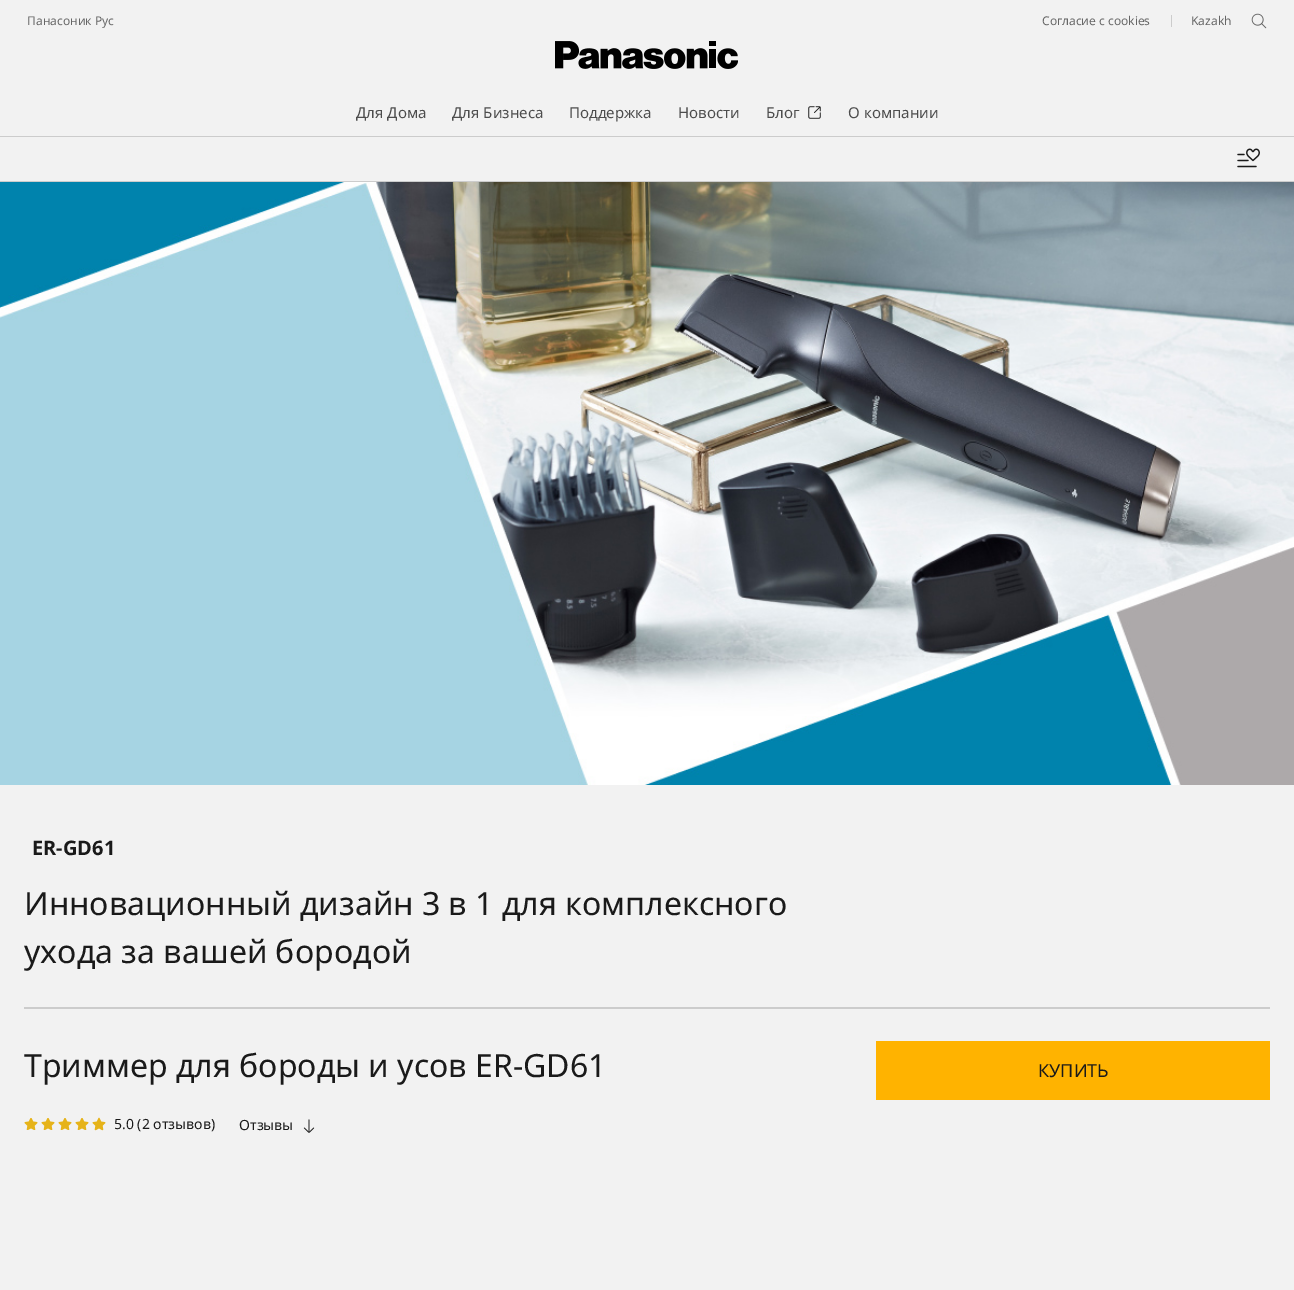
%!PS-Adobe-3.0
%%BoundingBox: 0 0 1294 1290
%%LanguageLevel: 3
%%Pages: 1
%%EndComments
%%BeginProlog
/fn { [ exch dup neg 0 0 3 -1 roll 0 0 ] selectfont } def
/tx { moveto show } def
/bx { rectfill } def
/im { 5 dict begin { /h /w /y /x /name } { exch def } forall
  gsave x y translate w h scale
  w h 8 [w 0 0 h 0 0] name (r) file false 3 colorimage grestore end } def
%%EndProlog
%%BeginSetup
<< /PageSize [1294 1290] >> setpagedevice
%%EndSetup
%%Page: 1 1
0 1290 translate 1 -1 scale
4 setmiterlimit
0.949 setgray
0 0 1294 1290 bx
/NotoSans-Regular 12 fn
0.4 setgray
(Панасоник Рус) 27 25 tx
(Согласие с cookies) 1042 25 tx
0.8 setgray
1171 15 1 12 bx
0.4 setgray
(Kazakh) 1191 25 tx
(image0.raw) 1251 13 16 16 im
(image1.raw) 555 41 183 28 im
/NotoSans-Regular 15 fn
0.302 setgray
(Для Дома) 356 118 tx
(Для Бизнеса) 452 118 tx
(Поддержка) 569 118 tx
(Новости) 678 118 tx
(Блог) 766 118 tx
(image2.raw) 808 106 13 13 im
(О компании) 848 118 tx
0.8 setgray
0 136 1294 1 bx
0 181 1294 1 bx
(image3.raw) 1237 148 23 20 im
(image4.raw) 0 182 1294 603 im
/NotoSans-Bold 20 fn
0.102 setgray
(ER-GD61) 32 855 tx
/NotoSans-Regular 32 fn
(Инновационный дизайн 3 в 1 для комплексного) 24 915 tx
(ухода за вашей бородой) 24 963 tx
0.8 setgray
24 1007 1246 2 bx
0.102 setgray
(Триммер для бороды и усов ER-GD61) 24 1077 tx
(image5.raw) 24 1118 14 12 im
(image5.raw) 41 1118 14 12 im
(image5.raw) 58 1118 14 12 im
(image5.raw) 75 1118 14 12 im
(image6.raw) 92 1117 14 14 im
/NotoSans-Regular 14 fn
(5.0 \(2 отзывов\)) 114 1129 tx
(Отзывы) 239 1130 tx
(image7.raw) 303 1119 12 14 im
1 0.702 0 setrgbcolor
876 1041 394 59 bx
/NotoSans-Regular 18 fn
0.102 setgray
(КУПИТЬ) 1038 1077 tx
showpage
%%EOF
